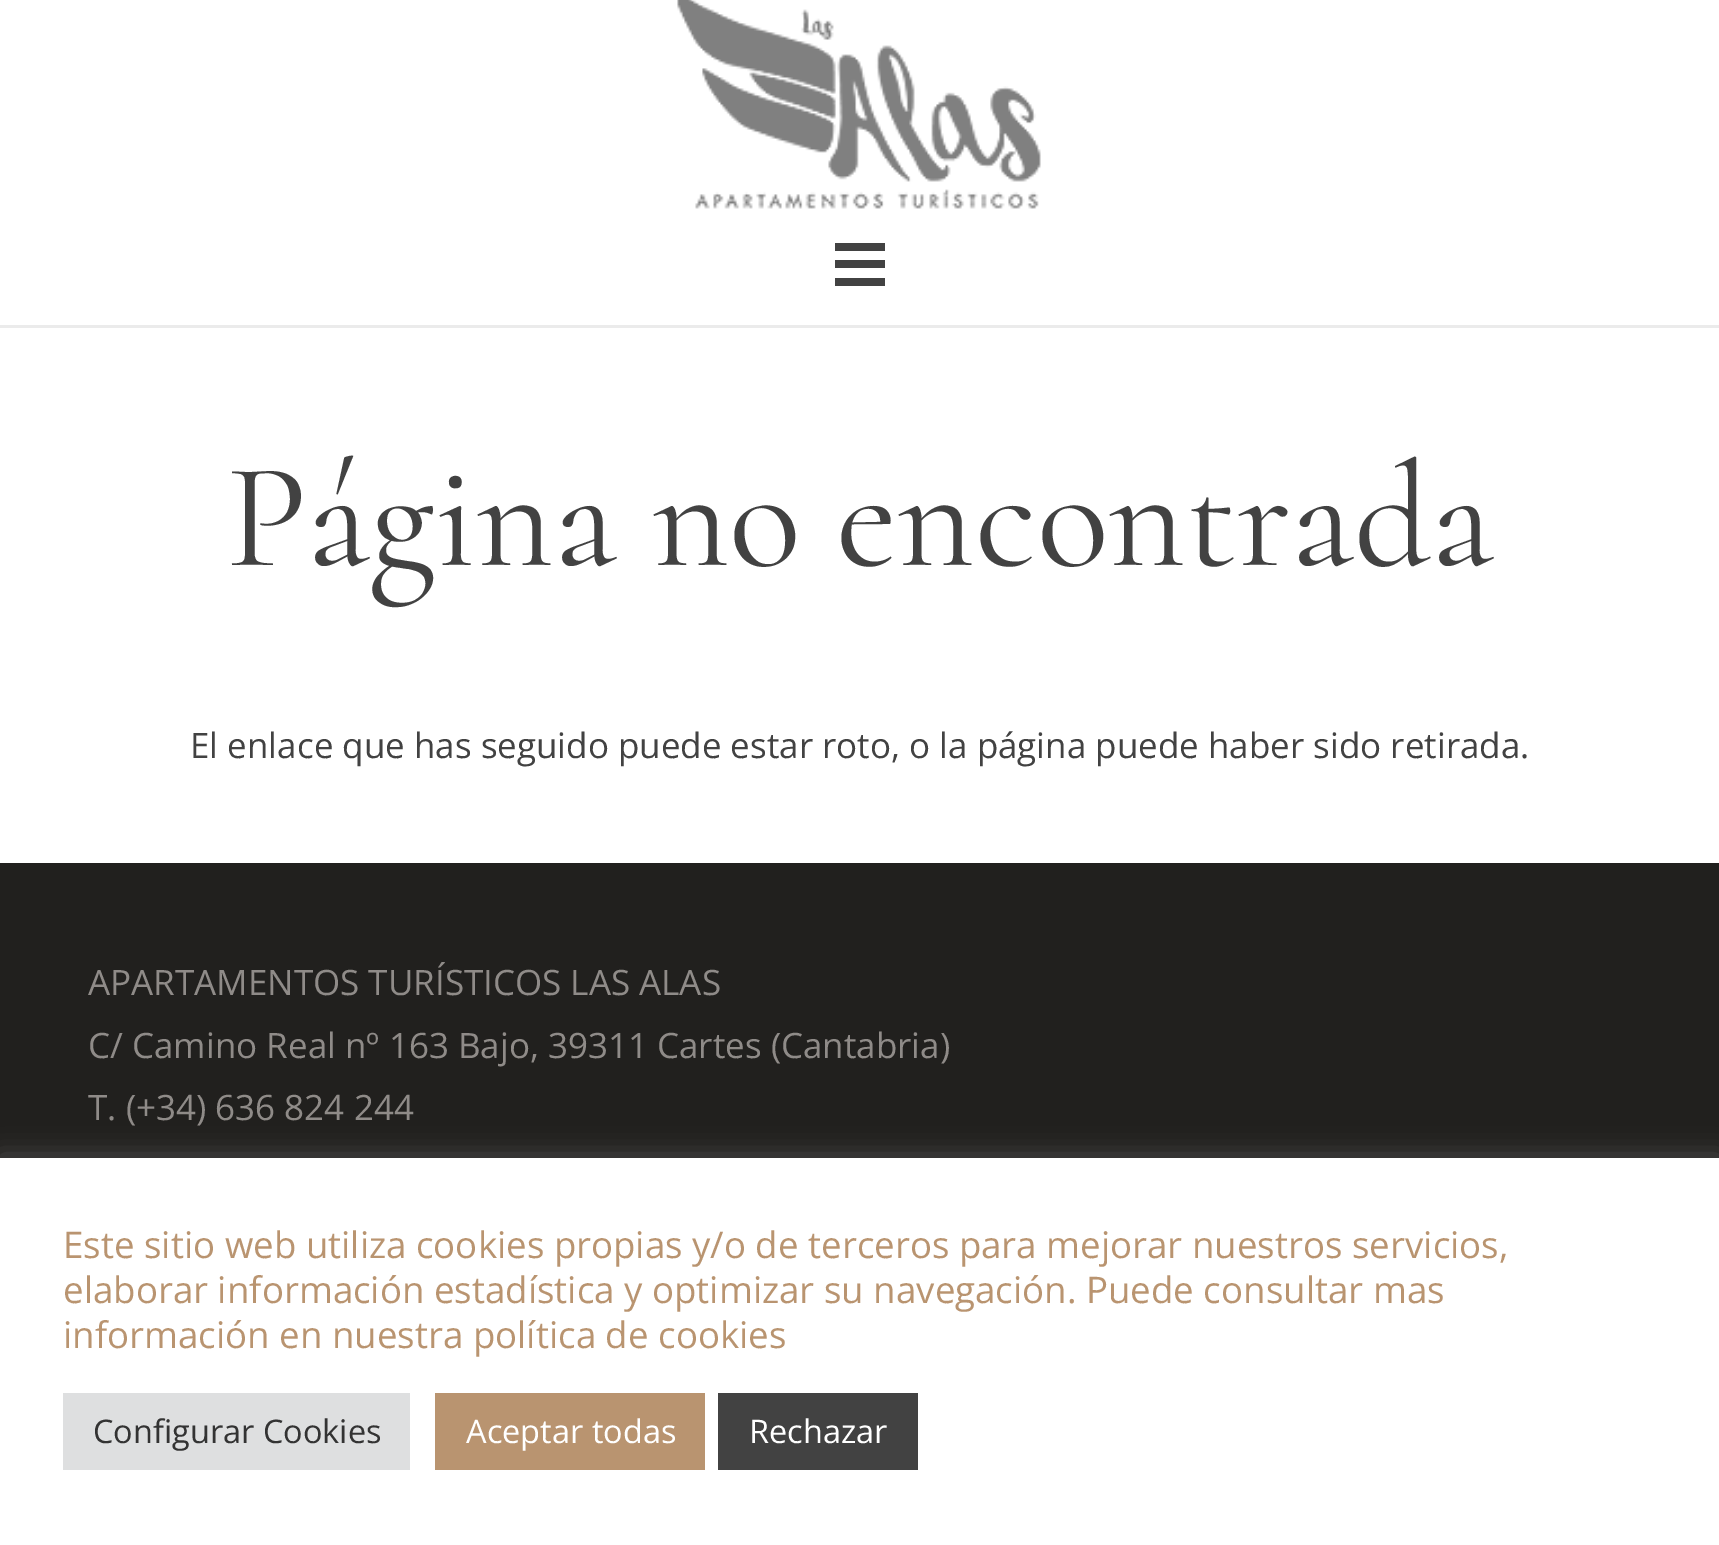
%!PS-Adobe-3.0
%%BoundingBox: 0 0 1719 1545
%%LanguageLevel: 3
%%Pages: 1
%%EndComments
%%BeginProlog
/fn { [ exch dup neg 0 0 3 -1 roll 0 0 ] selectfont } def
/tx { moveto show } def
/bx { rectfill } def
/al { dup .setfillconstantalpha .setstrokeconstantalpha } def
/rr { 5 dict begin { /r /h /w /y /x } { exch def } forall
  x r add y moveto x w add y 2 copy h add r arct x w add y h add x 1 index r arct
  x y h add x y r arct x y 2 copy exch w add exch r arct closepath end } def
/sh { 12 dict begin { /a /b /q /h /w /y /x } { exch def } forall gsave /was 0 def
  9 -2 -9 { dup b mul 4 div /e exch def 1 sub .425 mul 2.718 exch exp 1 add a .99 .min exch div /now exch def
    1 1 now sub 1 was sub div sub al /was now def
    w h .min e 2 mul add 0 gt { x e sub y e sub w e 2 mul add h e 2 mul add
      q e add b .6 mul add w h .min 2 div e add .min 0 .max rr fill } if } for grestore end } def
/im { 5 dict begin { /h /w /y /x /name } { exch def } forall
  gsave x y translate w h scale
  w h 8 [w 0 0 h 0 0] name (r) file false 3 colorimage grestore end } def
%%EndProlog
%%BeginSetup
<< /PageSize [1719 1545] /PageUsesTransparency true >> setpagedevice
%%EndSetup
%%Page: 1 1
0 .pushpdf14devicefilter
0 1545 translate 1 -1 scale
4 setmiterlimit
1 setgray
0 0 1719 1545 bx
(image0.raw) 677 0 364 209 im
0.922 setgray
0 325 1719 3 bx
0.259 setgray
835 260 50 8 bx
835 243 50 8 bx
835 278 50 8 bx
/Cormorant-Light 150 fn
(Página no encontrada) 226 565 tx
/OpenSans-Regular 35 fn
(El enlace que has seguido puede estar roto, o la página puede haber sido retirada.) 190 758 tx
0.129 0.125 0.118 setrgbcolor
0 863 1719 295 bx
0.561 0.545 0.533 setrgbcolor
(APARTAMENTOS TURÍSTICOS LAS ALAS) 88 995 tx
(C/ Camino Real nº 163 Bajo, 39311 Cartes \(Cantabria\)) 88 1058 tx
(T. \(+34\) 636 824 244) 88 1120 tx
0.675 0.671 0.671 setrgbcolor
0 1155 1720 388 0 12.5 0.3 sh
1 setgray
0 1158 1719 387 bx
/OpenSans-Regular 36.65 fn
0.725 0.58 0.439 setrgbcolor
(Este sitio web utiliza cookies propias y/o de terceros para mejorar nuestros servicios,) 63 1258 tx
(elaborar información estadística y optimizar su navegación. Puede consultar mas) 63 1303 tx
(información en nuestra política de cookies) 63 1348 tx
0.871 0.875 0.878 setrgbcolor
63 1393 347 77 bx
/OpenSans-Regular 32.5 fn
0.2 setgray
(Configurar Cookies) 93 1443 tx
0.725 0.58 0.439 setrgbcolor
435 1393 270 77 bx
1 setgray
(Aceptar todas) 466 1443 tx
0.259 setgray
718 1393 200 77 bx
1 setgray
(Rechazar) 749 1443 tx
.poppdf14devicefilter showpage
%%EOF
